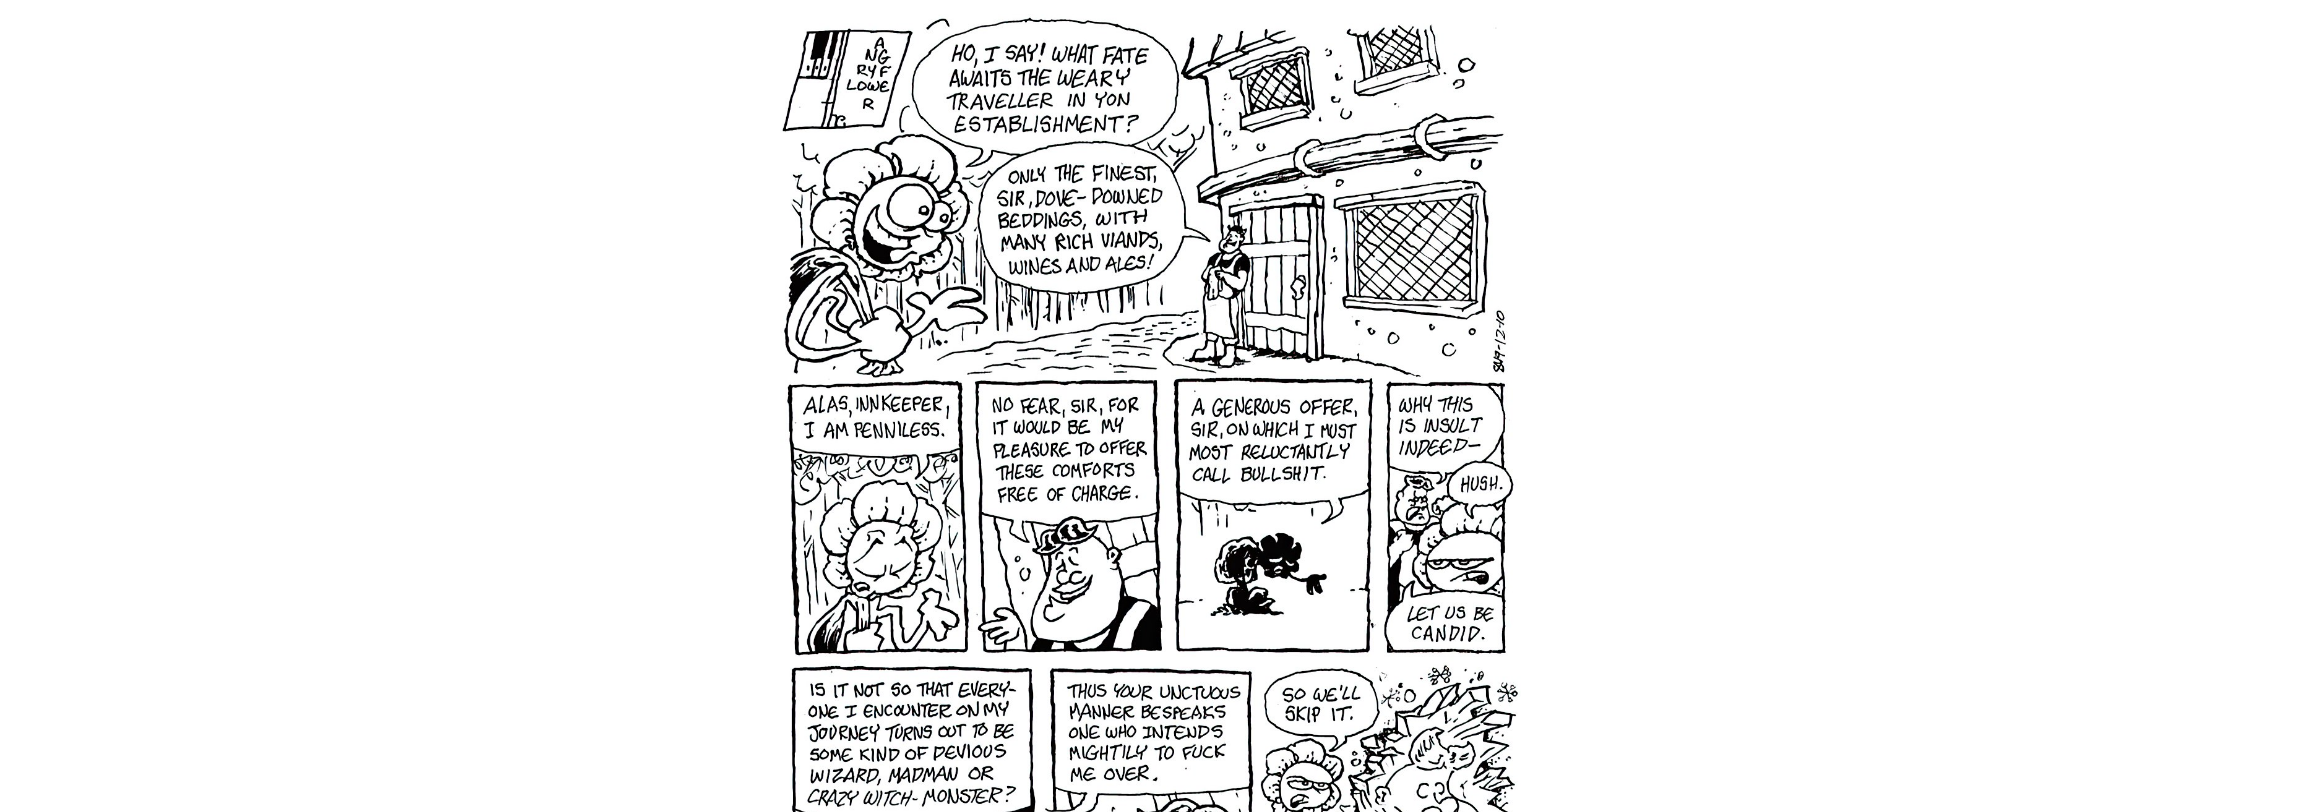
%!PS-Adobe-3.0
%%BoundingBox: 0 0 2302 812
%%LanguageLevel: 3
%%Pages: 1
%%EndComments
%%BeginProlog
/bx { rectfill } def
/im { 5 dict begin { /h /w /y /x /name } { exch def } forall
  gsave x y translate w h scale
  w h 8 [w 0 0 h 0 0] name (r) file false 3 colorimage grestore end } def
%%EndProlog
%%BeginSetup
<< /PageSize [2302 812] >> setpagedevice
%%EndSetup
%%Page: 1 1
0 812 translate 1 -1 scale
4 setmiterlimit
1 setgray
0 0 2302 812 bx
(image0.raw) 780 14 741 798 im
showpage
%%EOF
